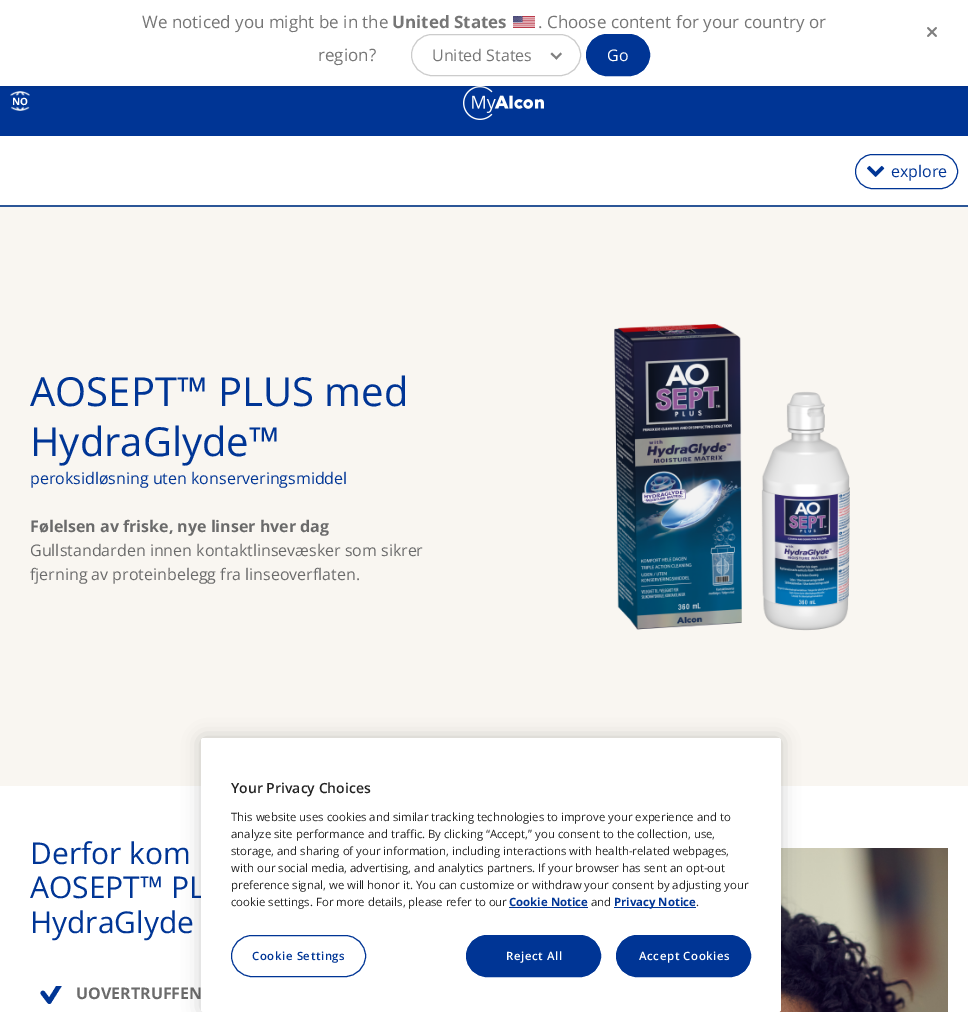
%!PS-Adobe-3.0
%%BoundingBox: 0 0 968 1012
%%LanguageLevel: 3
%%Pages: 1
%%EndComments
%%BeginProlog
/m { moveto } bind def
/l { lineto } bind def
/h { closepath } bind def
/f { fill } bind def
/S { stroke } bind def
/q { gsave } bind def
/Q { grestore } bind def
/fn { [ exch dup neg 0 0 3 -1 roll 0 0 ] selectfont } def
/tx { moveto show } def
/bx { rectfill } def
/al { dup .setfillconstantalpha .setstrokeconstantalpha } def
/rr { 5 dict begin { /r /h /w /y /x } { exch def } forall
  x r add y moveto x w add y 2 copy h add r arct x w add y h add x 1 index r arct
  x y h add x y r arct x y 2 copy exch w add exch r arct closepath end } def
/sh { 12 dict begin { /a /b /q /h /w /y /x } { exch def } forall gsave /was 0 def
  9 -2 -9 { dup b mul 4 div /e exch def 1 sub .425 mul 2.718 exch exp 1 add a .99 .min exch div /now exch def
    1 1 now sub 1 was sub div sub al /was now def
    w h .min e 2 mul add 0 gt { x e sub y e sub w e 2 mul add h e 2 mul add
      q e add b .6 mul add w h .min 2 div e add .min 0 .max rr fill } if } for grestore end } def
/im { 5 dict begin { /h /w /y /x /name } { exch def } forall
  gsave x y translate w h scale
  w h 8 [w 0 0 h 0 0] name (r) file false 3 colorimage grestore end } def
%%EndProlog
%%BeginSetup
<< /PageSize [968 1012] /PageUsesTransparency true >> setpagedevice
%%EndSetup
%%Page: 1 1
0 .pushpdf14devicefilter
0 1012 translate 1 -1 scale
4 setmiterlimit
1 setgray
0 0 968 1012 bx
0 0.208 0.584 setrgbcolor
0 86 968 50 bx
(image2.raw) 10 91 20 20 im
(image3.raw) 463 86 81 34 im
q
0 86 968 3 rectclip
0 setgray
0 1 968 86 0 2.5 0.1 sh
Q
/OpenSans-Regular 17 fn
0.463 setgray
(We noticed you might be in the) 142 28 tx
/OpenSans-Bold 17 fn
(United States) 392 28 tx
(image0.raw) 513 16 22 12 im
/OpenSans-Regular 17 fn
(. Choose content for your country or) 538 28 tx
(region?) 318 61 tx
(image1.raw) 927 27 10 10 im
0.8 setgray
411.5 34.5 169 41 20.5 rr S
/OpenSans-Regular 16 fn
0.463 setgray
(United States) 432 61 tx
0.502 setgray
560.5 52.5 m 562 54 l 556.5 59.5 l 555 58 l h f
552 52.5 m 557.5 58 l 556.5 59.5 l 550.5 54 l h f
0 0.208 0.584 setrgbcolor
586.5 34.5 63 41 20.5 rr q f Q
S
1 setgray
(Go) 607 61 tx
/OpenSans-Bold 10 fn
(NO) 12 105 tx
0 0.208 0.584 setrgbcolor
855.5 154.5 102 34 17 rr S
(image4.raw) 867 165 18 12 im
/OpenSans-Regular 16 fn
(explore) 891 177 tx
0.173 0.337 0.592 setrgbcolor
0 205 968 2 bx
0.976 0.965 0.945 setrgbcolor
0 207 968 579 bx
/OpenSans-Regular 40 fn
0 0.208 0.584 setrgbcolor
(AOSEPT™ PLUS med) 30 406 tx
(HydraGlyde™) 30 456 tx
/OpenSans-Regular 16 fn
(peroksidløsning uten konserveringsmiddel) 30 484 tx
/OpenSans-Bold 16 fn
0.42 setgray
(Følelsen av friske, nye linser hver dag) 30 532 tx
/OpenSans-Regular 16 fn
(Gullstandarden innen kontaktlinsevæsker som sikrer) 30 556 tx
(fjerning av proteinbelegg fra linseoverflaten.) 30 580 tx
(image5.raw) 614 324 236 307 im
/OpenSans-Regular 30 fn
0 0.208 0.584 setrgbcolor
(Derfor kom) 30 864 tx
(AOSEPT™ PL) 30 898 tx
(HydraGlyde) 30 933 tx
(image6.raw) 40 986 22 18 im
/OpenSans-Bold 16 fn
0.42 setgray
(UOVERTRUFFEN) 76 999 tx
(image7.raw) 778 848 170 164 im
0 setgray
201 738 580 274 2.5 9 0.2 sh
1 setgray
201 738 580 274 2.5 rr f
/OpenSans-SemiBold 14 fn
0.137 setgray
(Your Privacy Choices) 231 793 tx
/OpenSans-Regular 11.4 fn
(This website uses cookies and similar tracking technologies to improve your experience and to) 231 821 tx
(analyze site performance and traffic. By clicking “Accept,” you consent to the collection, use,) 231 838 tx
(storage, and sharing of your information, including interactions with health-related webpages,) 231 855 tx
(with our social media, advertising, and analytics partners. If your browser has sent an opt-out) 231 872 tx
(preference signal, we will honor it. You can customize or withdraw your consent by adjusting your) 231 889 tx
(cookie settings. For more details, please refer to our) 231 906 tx
/OpenSans-Bold 11.4 fn
0 0.208 0.584 setrgbcolor
(Cookie Notice) 509 906 tx
509 907 79 1 bx
/OpenSans-Regular 11.4 fn
0.137 setgray
(and) 591 906 tx
0 0.208 0.584 setrgbcolor
614 907 82 1 bx
/OpenSans-Bold 11.4 fn
(Privacy Notice) 614 906 tx
/OpenSans-Regular 11.4 fn
0.137 setgray
(.) 696 906 tx
0 0.208 0.584 setrgbcolor
231.5 935.5 134 41 20.5 rr S
/OpenSans-SemiBold 11.4 fn
252 960 m 0.6 0 (Cookie Settings) ashow
466.5 935.5 134 41 20.5 rr q f Q
S
1 setgray
506 960 m 0.6 0 (Reject All) ashow
0 0.208 0.584 setrgbcolor
616.5 935.5 134 41 20.5 rr q f Q
S
1 setgray
639 960 m 0.6 0 (Accept Cookies) ashow
.poppdf14devicefilter showpage
%%EOF
